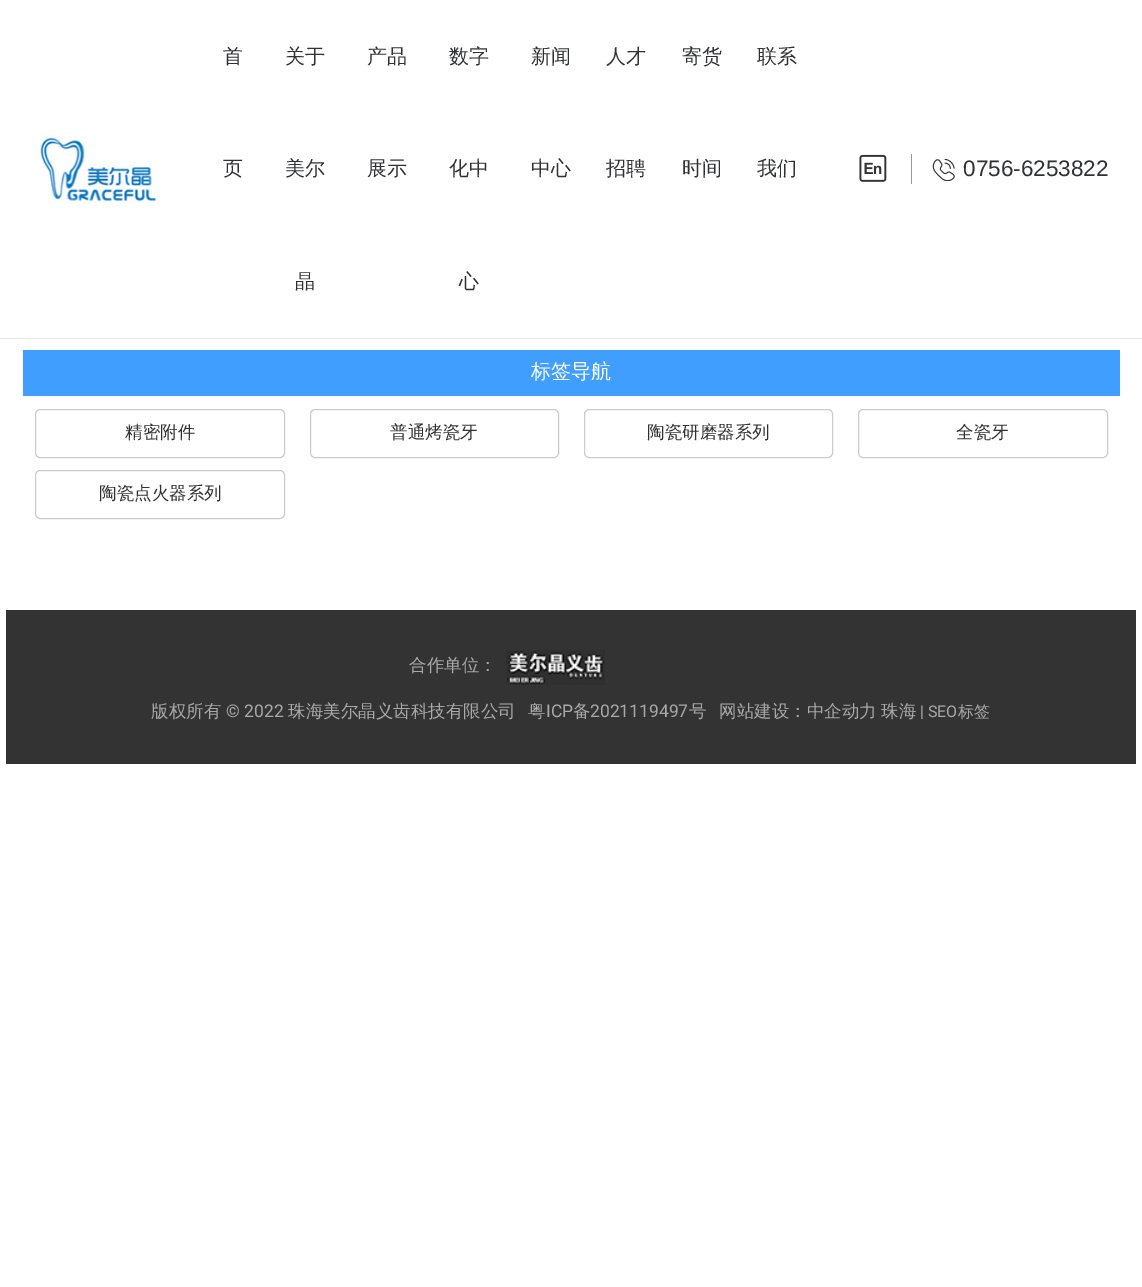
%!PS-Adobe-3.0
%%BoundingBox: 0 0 1142 1287
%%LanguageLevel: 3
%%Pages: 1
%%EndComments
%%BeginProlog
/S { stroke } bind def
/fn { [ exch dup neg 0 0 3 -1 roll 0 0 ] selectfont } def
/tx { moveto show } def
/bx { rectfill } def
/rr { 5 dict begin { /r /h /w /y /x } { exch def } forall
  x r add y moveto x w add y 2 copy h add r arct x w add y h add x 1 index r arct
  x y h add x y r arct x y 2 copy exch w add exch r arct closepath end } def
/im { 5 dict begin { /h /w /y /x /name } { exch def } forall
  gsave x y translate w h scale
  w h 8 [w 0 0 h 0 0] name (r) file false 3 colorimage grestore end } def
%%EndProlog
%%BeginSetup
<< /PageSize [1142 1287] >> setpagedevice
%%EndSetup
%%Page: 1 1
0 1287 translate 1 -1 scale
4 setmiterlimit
1 setgray
0 0 1142 1287 bx
0.902 setgray
0 338 1142 1 bx
(image0.raw) 40 135 118 68 im
/WenQuanYiZenHei-Medium 20 fn
0.188 0.192 0.2 setrgbcolor
(首) 223 63 tx
(页) 223 175 tx
(关于) 285 63 tx
(美尔) 285 175 tx
(晶) 295 288 tx
(产品) 367 63 tx
(展示) 367 175 tx
(数字) 449 63 tx
(化中) 449 175 tx
(心) 459 288 tx
(新闻) 531 63 tx
(中心) 531 175 tx
(人才) 606 63 tx
(招聘) 606 175 tx
(寄货) 682 63 tx
(时间) 682 175 tx
(联系) 757 63 tx
(我们) 757 175 tx
(image1.raw) 859 154 28 28 im
0.6 setgray
911 154 1 30 bx
(image2.raw) 932 159 23 22 im
/LiberationSans-Regular 22.5 fn
0.188 0.192 0.2 setrgbcolor
(0756-6253822) 963 176 tx
0.251 0.62 1 setrgbcolor
23 350 1097 46 bx
/WenQuanYiZenHei-Medium 20 fn
1 setgray
(标签导航) 531 378 tx
0.8 setgray
35.5 409.5 249 48 4.5 rr S
/WenQuanYiZenHei-Medium 17.5 fn
0.188 0.192 0.2 setrgbcolor
(精密附件) 125 438 tx
0.8 setgray
310.5 409.5 248 48 4.5 rr S
0.188 0.192 0.2 setrgbcolor
(普通烤瓷牙) 390 438 tx
0.8 setgray
584.5 409.5 248 48 4.5 rr S
0.188 0.192 0.2 setrgbcolor
(陶瓷研磨器系列) 647 438 tx
0.8 setgray
858.5 409.5 249 48 4.5 rr S
0.188 0.192 0.2 setrgbcolor
(全瓷牙) 956 438 tx
0.8 setgray
35.5 470.5 249 48 4.5 rr S
0.188 0.192 0.2 setrgbcolor
(陶瓷点火器系列) 99 499 tx
0.2 setgray
6 610 1130 154 bx
0.663 setgray
(合作单位：) 409 671 tx
(image3.raw) 506 650 99 35 im
(版权所有) 151 717 tx
/Roboto-Regular 17.5 fn
(© 2022) 226 717 tx
/WenQuanYiZenHei-Medium 17.5 fn
(珠海美尔晶义齿科技有限公司) 288 717 tx
(粤) 528 717 tx
/Roboto-Regular 17.5 fn
(ICP) 546 717 tx
/WenQuanYiZenHei-Medium 17.5 fn
(备) 573 717 tx
/Roboto-Regular 17.5 fn
(2021119497) 590 717 tx
/WenQuanYiZenHei-Medium 17.5 fn
(号) 689 717 tx
(网站建设：中企动力) 719 717 tx
(珠海) 881 717 tx
/Roboto-Regular 16 fn
(| SEO) 920 717 tx
/WenQuanYiZenHei-Medium 16 fn
(标签) 958 717 tx
showpage
%%EOF
